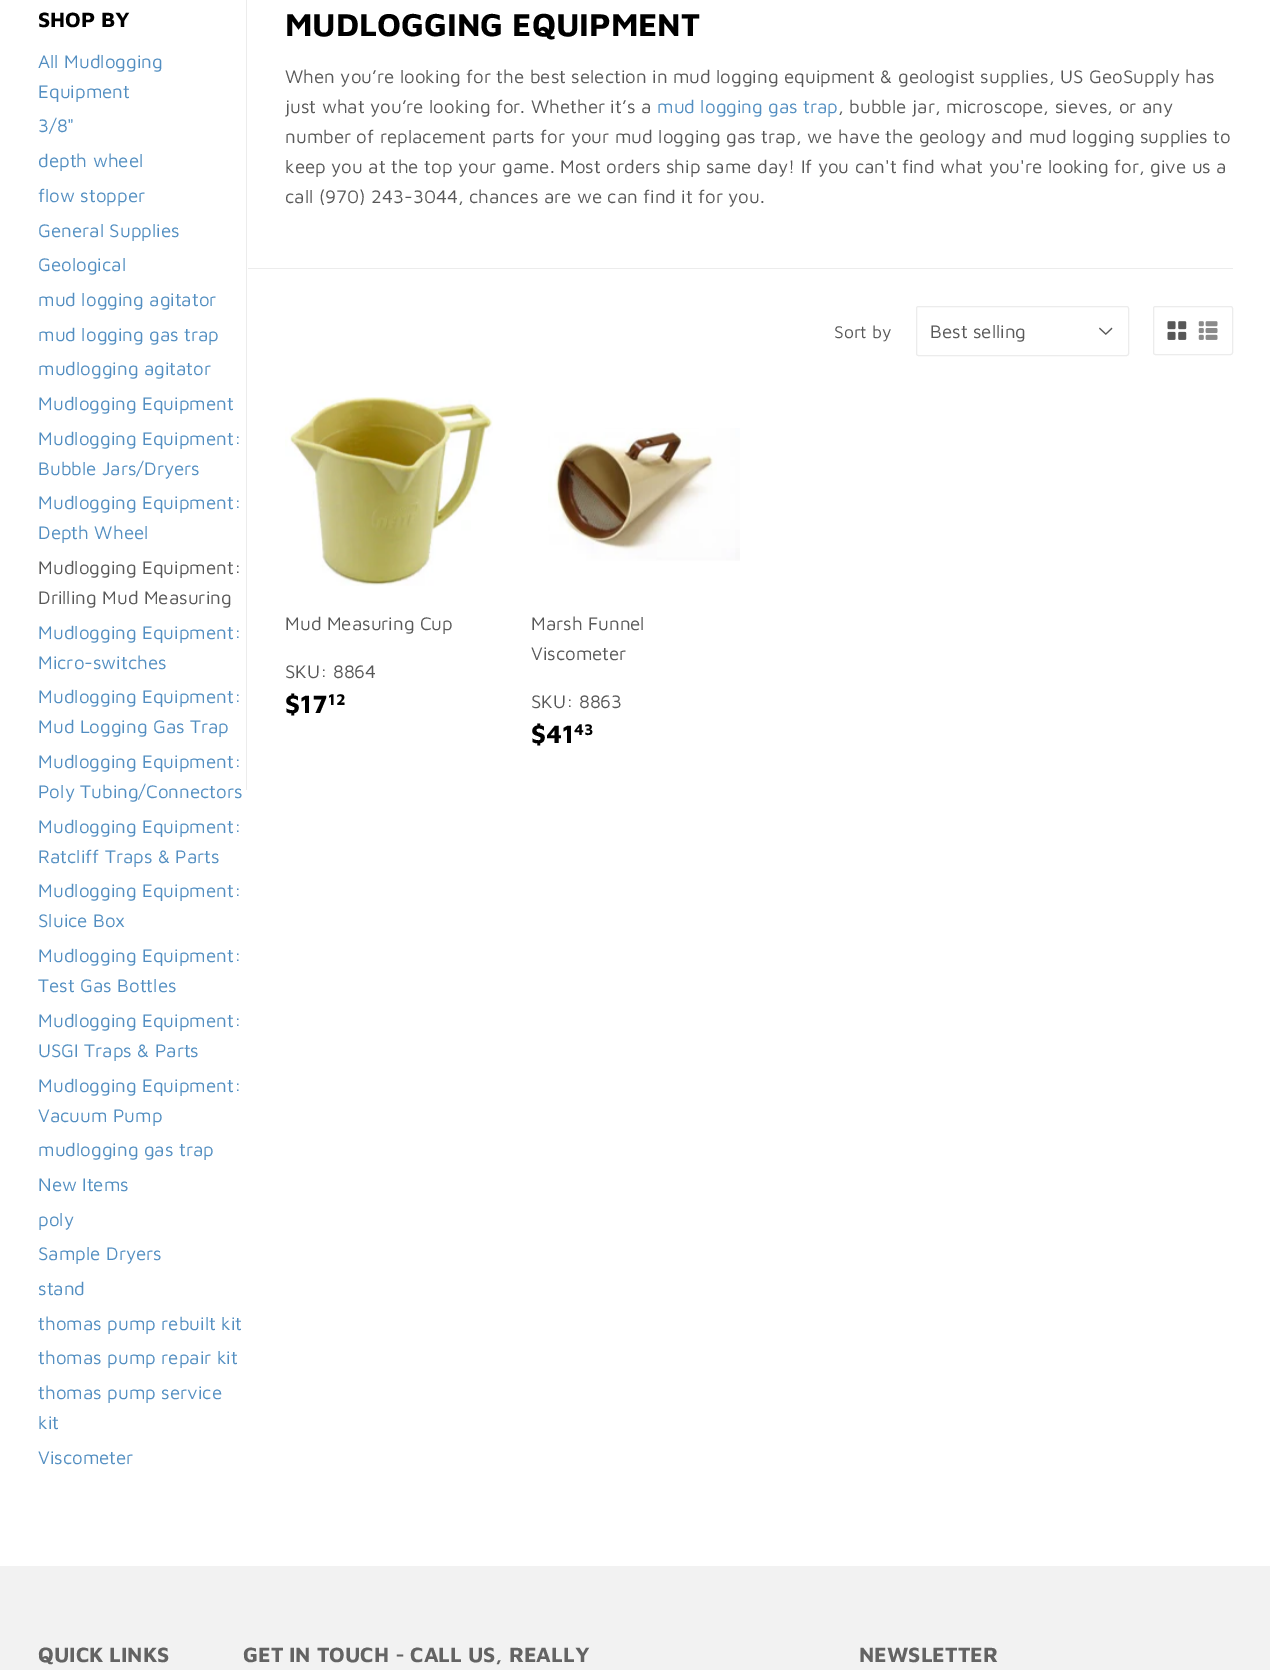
%!PS-Adobe-3.0
%%BoundingBox: 0 0 1270 1670
%%LanguageLevel: 3
%%Pages: 1
%%EndComments
%%BeginProlog
/S { stroke } bind def
/fn { [ exch dup neg 0 0 3 -1 roll 0 0 ] selectfont } def
/tx { moveto show } def
/bx { rectfill } def
/rr { 5 dict begin { /r /h /w /y /x } { exch def } forall
  x r add y moveto x w add y 2 copy h add r arct x w add y h add x 1 index r arct
  x y h add x y r arct x y 2 copy exch w add exch r arct closepath end } def
/im { 5 dict begin { /h /w /y /x /name } { exch def } forall
  gsave x y translate w h scale
  w h 8 [w 0 0 h 0 0] name (r) file false 3 colorimage grestore end } def
%%EndProlog
%%BeginSetup
<< /PageSize [1270 1670] >> setpagedevice
%%EndSetup
%%Page: 1 1
0 1670 translate 1 -1 scale
4 setmiterlimit
1 setgray
0 0 1270 1670 bx
/MavenPro-Bold 21.25 fn
0 setgray
(SHOP BY) 38 27 tx
/MavenPro-Regular 18.75 fn
0.322 0.557 0.757 setrgbcolor
(All Mudlogging) 38 68 tx
(Equipment) 38 98 tx
(3/8") 38 132 tx
(depth wheel) 38 167 tx
(flow stopper) 38 202 tx
(General Supplies) 38 237 tx
(Geological) 38 271 tx
(mud logging agitator) 38 306 tx
(mud logging gas trap) 38 341 tx
(mudlogging agitator) 38 375 tx
(Mudlogging Equipment) 38 410 tx
(Mudlogging Equipment:) 38 445 tx
(Bubble Jars/Dryers) 38 475 tx
(Mudlogging Equipment:) 38 509 tx
(Depth Wheel) 38 539 tx
0.345 setgray
(Mudlogging Equipment:) 38 574 tx
(Drilling Mud Measuring) 38 604 tx
0.322 0.557 0.757 setrgbcolor
(Mudlogging Equipment:) 38 639 tx
(Micro-switches) 38 669 tx
(Mudlogging Equipment:) 38 703 tx
(Mud Logging Gas Trap) 38 733 tx
(Mudlogging Equipment:) 38 768 tx
(Poly Tubing/Connectors) 38 798 tx
(Mudlogging Equipment:) 38 833 tx
(Ratcliff Traps & Parts) 38 863 tx
(Mudlogging Equipment:) 38 897 tx
(Sluice Box) 38 927 tx
(Mudlogging Equipment:) 38 962 tx
(Test Gas Bottles) 38 992 tx
(Mudlogging Equipment:) 38 1027 tx
(USGI Traps & Parts) 38 1057 tx
(Mudlogging Equipment:) 38 1092 tx
(Vacuum Pump) 38 1122 tx
(mudlogging gas trap) 38 1156 tx
(New Items) 38 1191 tx
(poly) 38 1226 tx
(Sample Dryers) 38 1260 tx
(stand) 38 1295 tx
(thomas pump rebuilt kit) 38 1330 tx
(thomas pump repair kit) 38 1364 tx
(thomas pump service) 38 1399 tx
(kit) 38 1429 tx
(Viscometer) 38 1464 tx
0.925 setgray
246 0 1 790 bx
/MavenPro-Bold 32.5 fn
0 setgray
(MUDLOGGING EQUIPMENT) 285 36 tx
/MavenPro-Regular 18.75 fn
0.345 setgray
(When you’re looking for the best selection in mud logging equipment & geologist supplies, US GeoSupply has) 285 83 tx
(just what you’re looking for. Whether it’s a) 285 113 tx
0.322 0.557 0.757 setrgbcolor
(mud logging gas trap) 657 113 tx
0.345 setgray
(, bubble jar, microscope, sieves, or any) 838 113 tx
(number of replacement parts for your mud logging gas trap, we have the geology and mud logging supplies to) 285 143 tx
(keep you at the top your game. Most orders ship same day! If you can't find what you're looking for, give us a) 285 173 tx
(call \(970\) 243-3044, chances are we can find it for you.) 285 203 tx
0.925 setgray
248 268 985 1 bx
/MavenPro-Regular 17.5 fn
0.345 setgray
(Sort by) 834 338 tx
(image0.raw) 1099 327 14 8 im
0.925 setgray
916.5 306.5 212 49 2 rr S
/MavenPro-Regular 18.75 fn
0.345 setgray
(Best selling) 930 338 tx
0.925 setgray
1153.5 306.5 79 48 2 rr S
(image1.raw) 1167 321 20 19 im
(image2.raw) 1198 321 20 19 im
(image3.raw) 285 397 208 189 im
0.345 setgray
(Mud Measuring Cup) 285 630 tx
(SKU: 8864) 285 678 tx
/MavenPro-Bold 26 fn
0 setgray
($17) 285 713 tx
/MavenPro-Bold 16 fn
(12) 328 705 tx
(image4.raw) 548 428 192 133 im
/MavenPro-Regular 18.75 fn
0.345 setgray
(Marsh Funnel) 531 630 tx
(Viscometer) 531 660 tx
(SKU: 8863) 531 708 tx
/MavenPro-Bold 26 fn
0 setgray
($41) 531 743 tx
/MavenPro-Bold 16 fn
(43) 574 735 tx
0.949 setgray
0 1566 1270 104 bx
/MavenPro-Bold 21.25 fn
0.388 setgray
(QUICK LINKS) 38 1662 tx
(GET IN TOUCH - CALL US, REALLY) 243 1662 tx
(NEWSLETTER) 859 1662 tx
showpage
%%EOF
